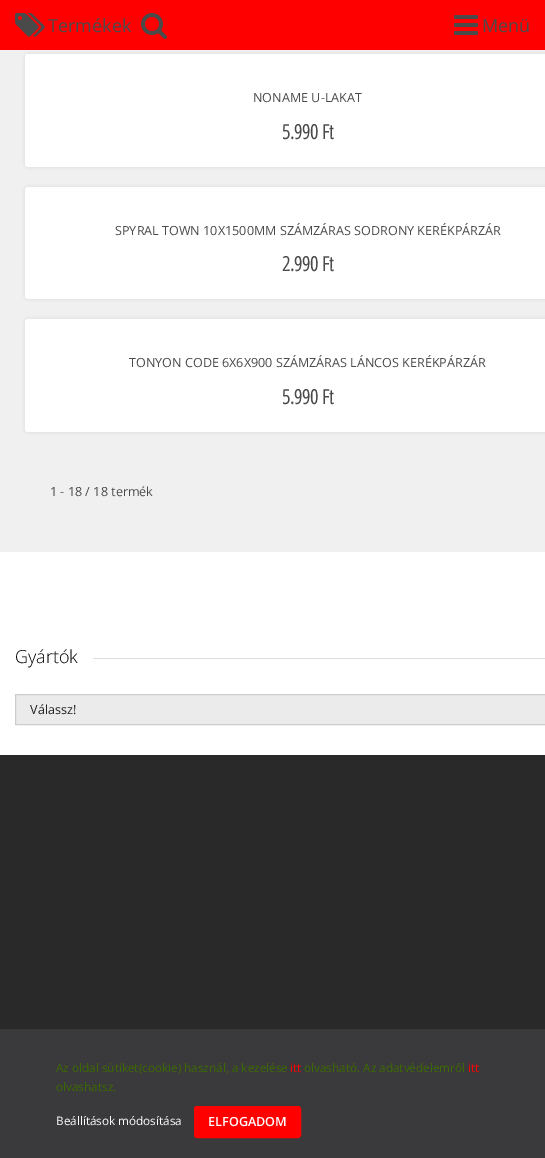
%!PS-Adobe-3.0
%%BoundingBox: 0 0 545 1158
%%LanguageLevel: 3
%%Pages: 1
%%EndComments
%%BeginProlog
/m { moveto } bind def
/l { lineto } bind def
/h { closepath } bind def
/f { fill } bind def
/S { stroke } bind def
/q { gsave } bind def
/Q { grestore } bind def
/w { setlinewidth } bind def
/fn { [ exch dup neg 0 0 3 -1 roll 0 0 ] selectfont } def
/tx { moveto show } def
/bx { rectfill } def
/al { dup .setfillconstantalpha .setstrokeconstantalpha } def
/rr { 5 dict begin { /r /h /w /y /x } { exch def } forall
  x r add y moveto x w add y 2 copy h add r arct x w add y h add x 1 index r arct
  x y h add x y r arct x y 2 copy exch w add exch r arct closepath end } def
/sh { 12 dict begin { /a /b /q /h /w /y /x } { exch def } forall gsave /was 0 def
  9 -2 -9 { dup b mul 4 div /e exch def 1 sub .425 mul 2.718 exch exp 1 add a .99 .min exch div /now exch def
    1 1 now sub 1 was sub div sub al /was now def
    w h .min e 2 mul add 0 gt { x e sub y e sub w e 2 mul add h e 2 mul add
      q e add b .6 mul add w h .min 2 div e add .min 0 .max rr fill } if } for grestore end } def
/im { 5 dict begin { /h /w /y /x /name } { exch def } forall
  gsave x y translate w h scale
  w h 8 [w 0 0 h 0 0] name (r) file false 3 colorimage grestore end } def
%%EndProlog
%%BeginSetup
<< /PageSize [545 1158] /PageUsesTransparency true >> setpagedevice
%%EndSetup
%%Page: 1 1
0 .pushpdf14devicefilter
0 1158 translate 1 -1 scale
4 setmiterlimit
1 setgray
0 0 545 1158 bx
0.941 setgray
0 50 545 502 bx
0 setgray
24 53 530 115 4 1.5 0.05 sh
1 0 0 setrgbcolor
0 0 545 50 bx
(image0.raw) 15 13 30 24 im
/OpenSans-Regular 18 fn
0.29 setgray
(Termékek) 48 32 tx
(image1.raw) 141 13 26 26 im
(image2.raw) 454 15 24 20 im
(Menü) 482 32 tx
1 setgray
25 54 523 113 3 rr f
/OpenSans-Regular 12.6 fn
0.29 setgray
(NONAME U-LAKAT) 253 102 tx
/OpenSansCondensed-Bold 20 fn
(5.990 Ft) 282 139 tx
0 setgray
24 186 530 114 4 1.5 0.05 sh
1 setgray
25 187 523 112 3 rr f
/OpenSans-Regular 12.6 fn
0.29 setgray
(SPYRAL TOWN 10X1500MM SZÁMZÁRAS SODRONY KERÉKPÁRZÁR) 115 235 tx
/OpenSansCondensed-Bold 20 fn
(2.990 Ft) 282 271 tx
0 setgray
24 318 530 115 4 1.5 0.05 sh
1 setgray
25 319 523 113 3 rr f
/OpenSans-Regular 12.6 fn
0.29 setgray
(TONYON CODE 6X6X900 SZÁMZÁRAS LÁNCOS KERÉKPÁRZÁR) 129 367 tx
/OpenSansCondensed-Bold 20 fn
(5.990 Ft) 282 404 tx
/OpenSans-Regular 12.6 fn
(1 - 18 / 18 termék) 50 496 tx
/OpenSans-Light 18 fn
0 setgray
(Gyártók) 15 663 tx
0.867 setgray
93 658 452 1 bx
0.922 setgray
15.5 694.5 m 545.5 694.5 l 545.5 724.5 l 15.5 724.5 l h q f Q
0.8 setgray
S
/OpenSans-Regular 12.6 fn
0.133 setgray
(Válassz!) 30 714 tx
0.161 setgray
0 755 545 274 bx
0.227 0.224 0.231 setrgbcolor
0 1029 545 129 bx
/OpenSans-Regular 11.75 fn
0.235 0.42 0 setrgbcolor
(Az oldal sütiket\(cookie\) használ, a kezelése) 56 1072 tx
1 0 0 setrgbcolor
(itt) 290 1072 tx
0.235 0.42 0 setrgbcolor
(olvasható. Az adatvédelemről) 304 1072 tx
1 0 0 setrgbcolor
(itt) 468 1072 tx
0.235 0.42 0 setrgbcolor
(olvashatsz.) 56 1091 tx
1 setgray
(Beállítások módosítása) 56 1125 tx
1 0 0 setrgbcolor
195 1107 105 30 2 rr q f Q
2 w
S
/OpenSans-SemiBold 12.6 fn
1 setgray
(ELFOGADOM) 208 1126 tx
.poppdf14devicefilter showpage
%%EOF
